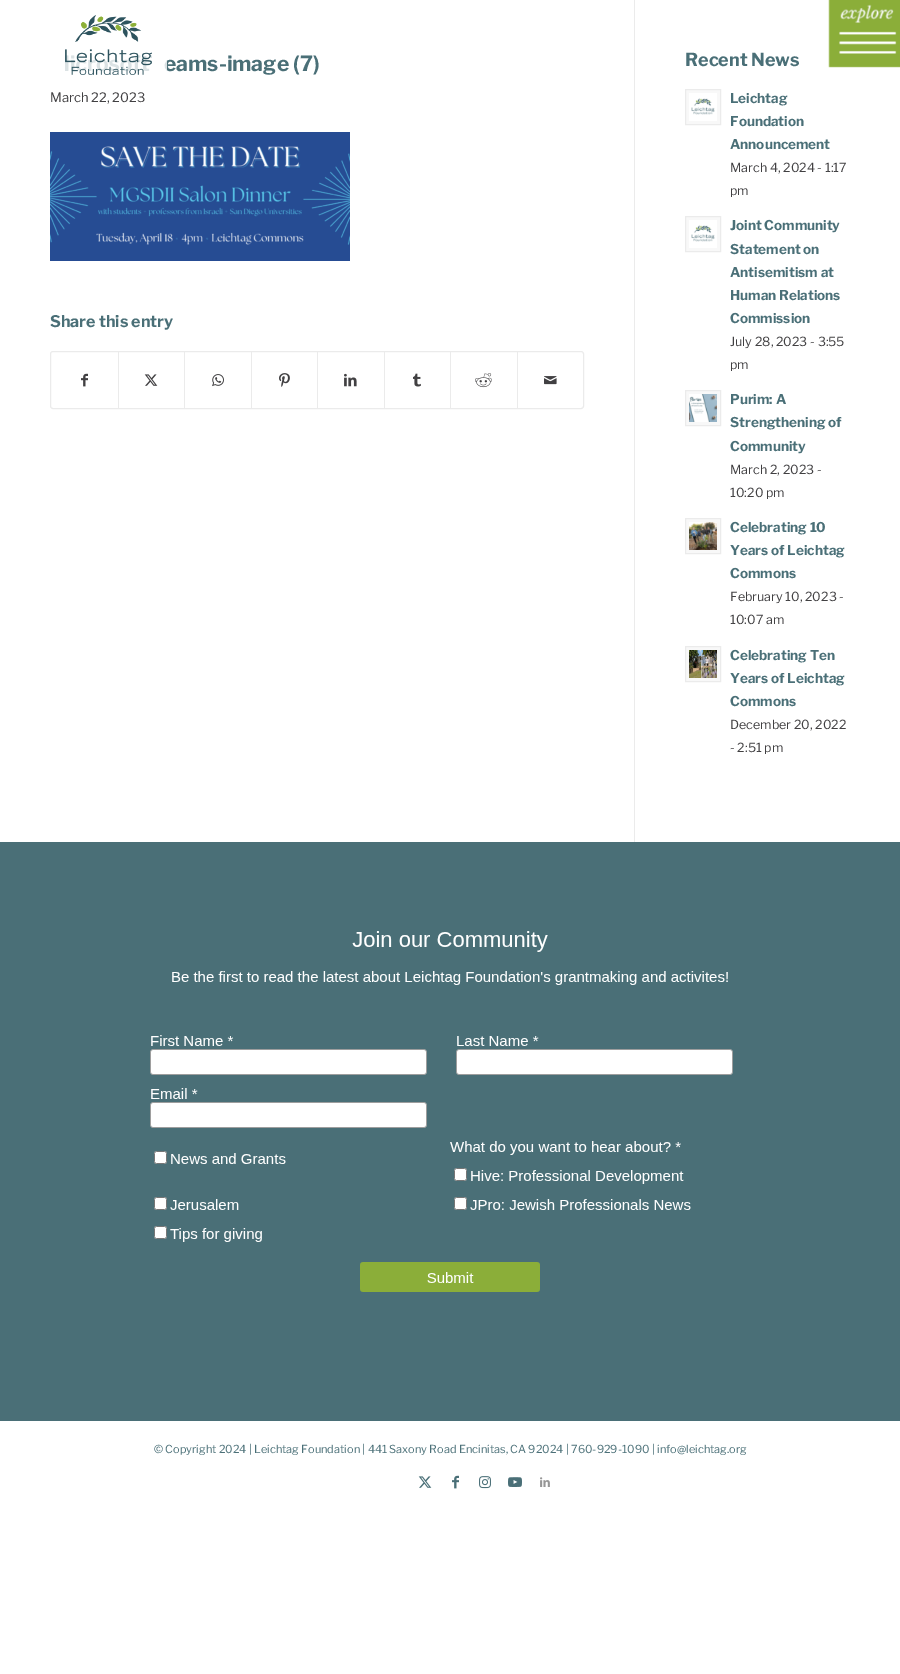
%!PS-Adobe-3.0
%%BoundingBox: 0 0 900 1674
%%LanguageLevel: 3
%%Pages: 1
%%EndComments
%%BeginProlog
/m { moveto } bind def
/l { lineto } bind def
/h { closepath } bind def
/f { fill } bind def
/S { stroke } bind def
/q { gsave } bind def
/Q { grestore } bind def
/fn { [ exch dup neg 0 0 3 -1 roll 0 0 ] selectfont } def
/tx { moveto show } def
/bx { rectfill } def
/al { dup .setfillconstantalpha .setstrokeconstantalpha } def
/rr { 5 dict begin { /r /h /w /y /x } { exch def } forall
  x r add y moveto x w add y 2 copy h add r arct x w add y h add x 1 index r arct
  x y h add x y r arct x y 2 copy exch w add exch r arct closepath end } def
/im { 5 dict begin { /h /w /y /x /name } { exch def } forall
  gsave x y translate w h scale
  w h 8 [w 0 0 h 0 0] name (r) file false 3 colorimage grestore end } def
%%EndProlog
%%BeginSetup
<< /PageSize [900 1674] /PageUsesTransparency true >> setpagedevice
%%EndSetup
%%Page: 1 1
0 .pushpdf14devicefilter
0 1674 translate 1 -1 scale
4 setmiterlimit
1 setgray
0 0 900 1674 bx
(image0.raw) 828 0 72 68 im
/LibreFranklin-Bold 21 fn
0.29 0.435 0.467 setrgbcolor
(eams-image \(7\)) 164 71 tx
0.8 al
1 setgray
164 61 3 9 bx
1 al
(image1.raw) 65 15 87 60 im
/LibreFranklin-Thin 13 fn
0.255 0.251 0.259 setrgbcolor
(March 22, 2023) 50 102 tx
(image2.raw) 50 132 300 129 im
/LibreFranklin-Bold 16 fn
0.29 0.435 0.467 setrgbcolor
(Share this entry) 50 327 tx
0.922 setgray
50.5 351.5 533 57 2.5 rr S
(image3.raw) 81 373 7 14 im
118 352 1 56 bx
(image4.raw) 144 374 14 12 im
184 352 1 56 bx
(image5.raw) 212 374 12 13 im
251 352 1 56 bx
(image6.raw) 279 373 11 14 im
317 352 1 56 bx
(image7.raw) 344 373 13 14 im
384 352 1 56 bx
(image8.raw) 413 373 8 14 im
450 352 1 56 bx
(image9.raw) 475 373 17 15 im
517 352 1 56 bx
(image10.raw) 544 376 13 9 im
634 0 1 842 bx
/LibreFranklin-Bold 18 fn
0.29 0.435 0.467 setrgbcolor
(Recent News) 685 66 tx
0.973 setgray
685.5 89.5 m 720.5 89.5 l 720.5 124.5 l 685.5 124.5 l h q f Q
0.922 setgray
S
(image11.raw) 689 93 28 28 im
/LibreFranklin-Bold 13.5 fn
0.29 0.435 0.467 setrgbcolor
(Leichtag) 730 103 tx
(Foundation) 730 126 tx
(Announcement) 730 149 tx
/LibreFranklin-Thin 12.5 fn
0.255 0.251 0.259 setrgbcolor
(March 4, 2024 - 1:17) 730 172 tx
(pm) 730 195 tx
0.973 setgray
685.5 216.5 m 720.5 216.5 l 720.5 251.5 l 685.5 251.5 l h q f Q
0.922 setgray
S
(image11.raw) 689 220 28 28 im
/LibreFranklin-Bold 13.5 fn
0.29 0.435 0.467 setrgbcolor
(Joint Community) 730 230 tx
(Statement on) 730 254 tx
(Antisemitism at) 730 277 tx
(Human Relations) 730 300 tx
(Commission) 730 323 tx
/LibreFranklin-Thin 12.5 fn
0.255 0.251 0.259 setrgbcolor
(July 28, 2023 - 3:55) 730 346 tx
(pm) 730 369 tx
0.973 setgray
685.5 390.5 m 720.5 390.5 l 720.5 425.5 l 685.5 425.5 l h q f Q
0.922 setgray
S
(image12.raw) 689 394 28 28 im
/LibreFranklin-Bold 13.5 fn
0.29 0.435 0.467 setrgbcolor
(Purim: A) 730 404 tx
(Strengthening of) 730 427 tx
(Community) 730 451 tx
/LibreFranklin-Thin 12.5 fn
0.255 0.251 0.259 setrgbcolor
(March 2, 2023 -) 730 474 tx
(10:20 pm) 730 497 tx
0.973 setgray
685.5 518.5 m 720.5 518.5 l 720.5 553.5 l 685.5 553.5 l h q f Q
0.922 setgray
S
(image13.raw) 689 522 28 28 im
/LibreFranklin-Bold 13.5 fn
0.29 0.435 0.467 setrgbcolor
(Celebrating 10) 730 532 tx
(Years of Leichtag) 730 555 tx
(Commons) 730 578 tx
/LibreFranklin-Thin 12.5 fn
0.255 0.251 0.259 setrgbcolor
(February 10, 2023 -) 730 601 tx
(10:07 am) 730 624 tx
0.973 setgray
685.5 646.5 m 720.5 646.5 l 720.5 681.5 l 685.5 681.5 l h q f Q
0.922 setgray
S
(image14.raw) 689 650 28 28 im
/LibreFranklin-Bold 13.5 fn
0.29 0.435 0.467 setrgbcolor
(Celebrating Ten) 730 660 tx
(Years of Leichtag) 730 683 tx
(Commons) 730 706 tx
/LibreFranklin-Thin 12.5 fn
0.255 0.251 0.259 setrgbcolor
(December 20, 2022) 730 729 tx
(- 2:51 pm) 730 752 tx
0.29 0.435 0.467 setrgbcolor
0 842 900 579 bx
(image15.raw) 150 931 583 361 im
/LibreFranklin-Thin 11 fn
(© Copyright 2024 | Leichtag Foundation | 441 Saxony Road Encinitas, CA 92024 | 760-929-1090 | info@leichtag.org) 154 1453 tx
(image16.raw) 418 1476 14 12 im
(image17.raw) 452 1475 7 14 im
(image18.raw) 479 1476 12 13 im
(image19.raw) 508 1477 14 10 im
(image20.raw) 540 1477 10 10 im
.poppdf14devicefilter showpage
%%EOF
